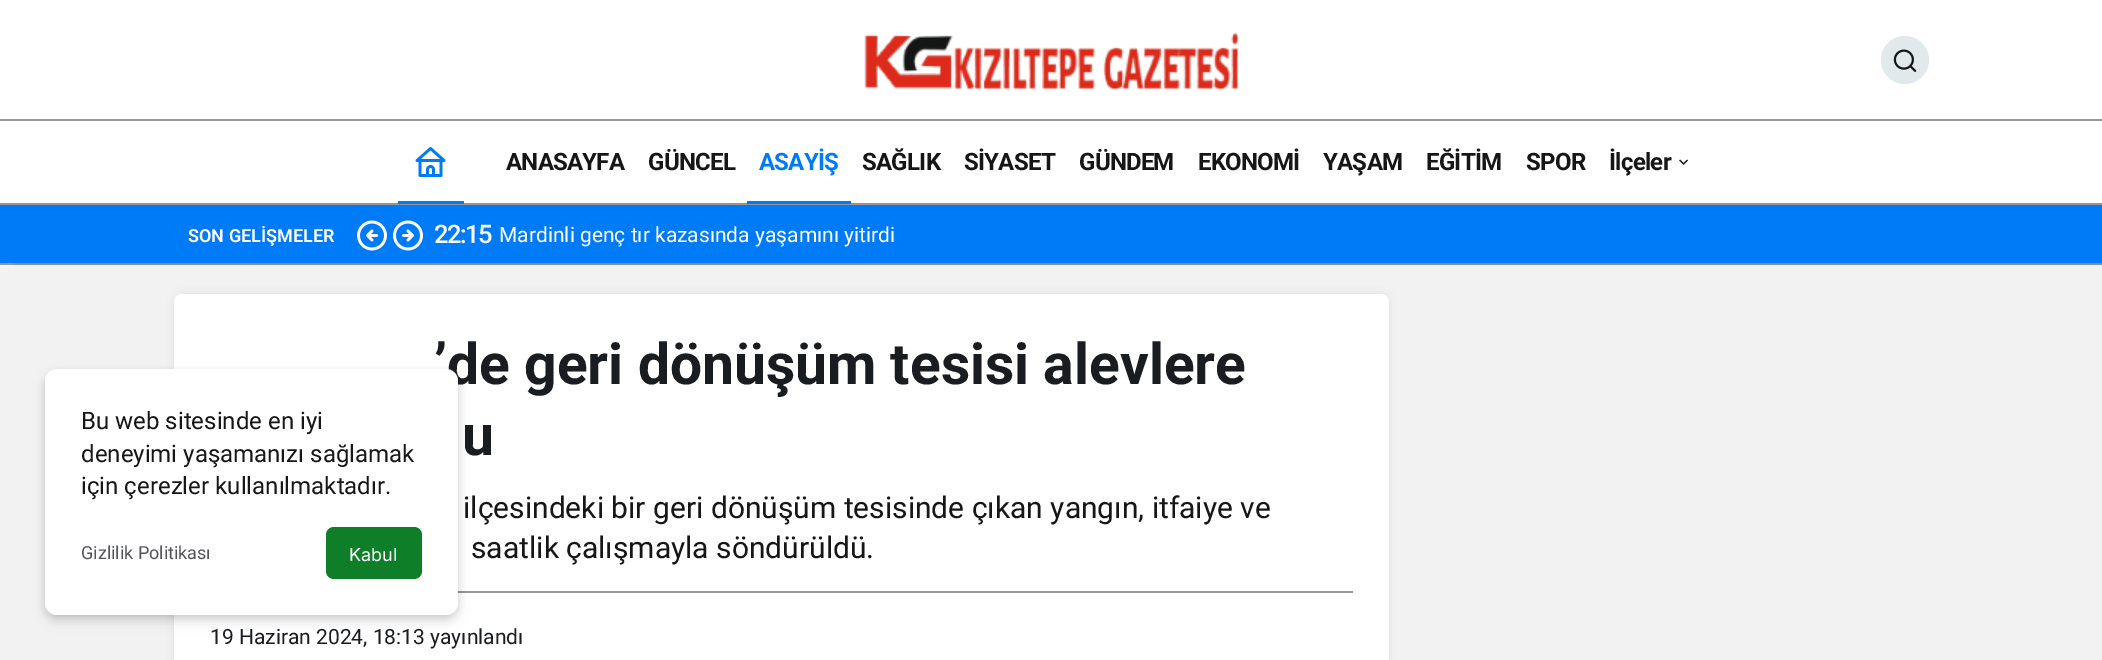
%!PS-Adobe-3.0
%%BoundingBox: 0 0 2102 660
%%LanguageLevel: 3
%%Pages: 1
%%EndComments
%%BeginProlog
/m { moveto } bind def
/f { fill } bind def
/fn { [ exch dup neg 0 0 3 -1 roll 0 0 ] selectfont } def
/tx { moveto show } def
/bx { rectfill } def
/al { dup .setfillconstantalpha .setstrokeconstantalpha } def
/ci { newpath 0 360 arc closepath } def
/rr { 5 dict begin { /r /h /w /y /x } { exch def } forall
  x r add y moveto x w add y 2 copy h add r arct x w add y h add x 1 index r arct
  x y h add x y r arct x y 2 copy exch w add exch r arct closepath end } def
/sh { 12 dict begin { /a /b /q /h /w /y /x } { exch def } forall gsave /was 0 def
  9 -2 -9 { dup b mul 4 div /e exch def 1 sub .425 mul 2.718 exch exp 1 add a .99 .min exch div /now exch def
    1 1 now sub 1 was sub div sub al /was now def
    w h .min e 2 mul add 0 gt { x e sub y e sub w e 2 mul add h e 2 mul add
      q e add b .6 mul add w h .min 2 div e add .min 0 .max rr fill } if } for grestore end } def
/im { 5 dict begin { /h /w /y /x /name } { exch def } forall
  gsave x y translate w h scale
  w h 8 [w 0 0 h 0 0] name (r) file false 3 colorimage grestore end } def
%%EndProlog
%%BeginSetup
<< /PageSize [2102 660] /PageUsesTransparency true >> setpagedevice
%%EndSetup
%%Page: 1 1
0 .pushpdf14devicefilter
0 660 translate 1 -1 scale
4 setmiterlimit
0.949 0.949 0.953 setrgbcolor
0 0 2102 660 bx
0.588 setgray
0 263 2102 2 bx
1 setgray
0 0 2102 119 bx
0.588 setgray
0 119 2102 2 bx
(image0.raw) 864 32 375 58 im
0.882 0.914 0.929 setrgbcolor
1905 60 24 ci f
(image1.raw) 1893 49 24 23 im
0 setgray
15 204 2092 60 0 1.5 0.1 sh
1 setgray
0 121 2102 82 bx
(image2.raw) 415 147 31 30 im
0.588 setgray
0 203 2102 2 bx
0 0.482 0.969 setrgbcolor
398 201 66 3 bx
/Roboto-Bold 24 fn
0.086 setgray
506 170 m -0.75 0 (ANASAYFA) ashow
648 170 m -0.75 0 (GÜNCEL) ashow
0 0.482 0.969 setrgbcolor
759 170 m -0.75 0 (ASAYİŞ) ashow
747 201 104 3 bx
0.086 setgray
862 170 m -0.75 0 (SAĞLIK) ashow
964 170 m -0.75 0 (SİYASET) ashow
1079 170 m -0.75 0 (GÜNDEM) ashow
1198 170 m -0.75 0 (EKONOMİ) ashow
1323 170 m -0.75 0 (YAŞAM) ashow
1426 170 m -0.75 0 (EĞİTİM) ashow
1526 170 m -0.75 0 (SPOR) ashow
1609 170 m -0.75 0 (İlçeler) ashow
(image3.raw) 1679 159 9 6 im
0 0.482 0.969 setrgbcolor
0 205 2102 58 bx
/Roboto-SemiBold 18 fn
1 setgray
(SON GELİŞMELER) 188 242 tx
(image4.raw) 357 220 30 31 im
(image5.raw) 393 220 30 31 im
/Roboto-Medium 25.5 fn
434 243 m -1.5 0 (22:15) ashow
/Roboto-Regular 21 fn
(Mardinli genç tır kazasında yaşamını yitirdi) 499 242 tx
0.196 0.208 0.239 setrgbcolor
174 294 1215 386 8 4 0.1 sh
1 setgray
174 294 1215 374 8 rr f
/Roboto-Bold 57 fn
0.098 0.11 0.125 setrgbcolor
(’de geri dönüşüm tesisi alevlere) 434 384 tx
(u) 462 455 tx
/Roboto-Regular 30 fn
0.086 setgray
(ilçesindeki bir geri dönüşüm tesisinde çıkan yangın, itfaiye ve) 463 518 tx
(saatlik çalışmayla söndürüldü.) 471 558 tx
0.588 setgray
458 591 895 2 bx
/Roboto-Regular 21 fn
0.098 0.11 0.125 setrgbcolor
(19 Haziran 2024, 18:13 yayınlandı) 210 644 tx
0 setgray
45 372 413 246 12 3 0.08 sh
45 375 413 246 12 6 0.12 sh
1 setgray
45 369 413 246 12 rr f
/Roboto-Regular 24 fn
0.086 setgray
(Bu web sitesinde en iyi) 81 429 tx
(deneyimi yaşamanızı sağlamak) 81 462 tx
(için çerezler kullanılmaktadır.) 81 494 tx
/Roboto-Regular 18 fn
0.325 0.333 0.345 setrgbcolor
(Gizlilik Politikası) 81 559 tx
0.059 0.494 0.161 setrgbcolor
326 527 96 52 8 rr f
/Inter-Regular 18 fn
1 setgray
(Kabul) 349 561 tx
.poppdf14devicefilter showpage
%%EOF
